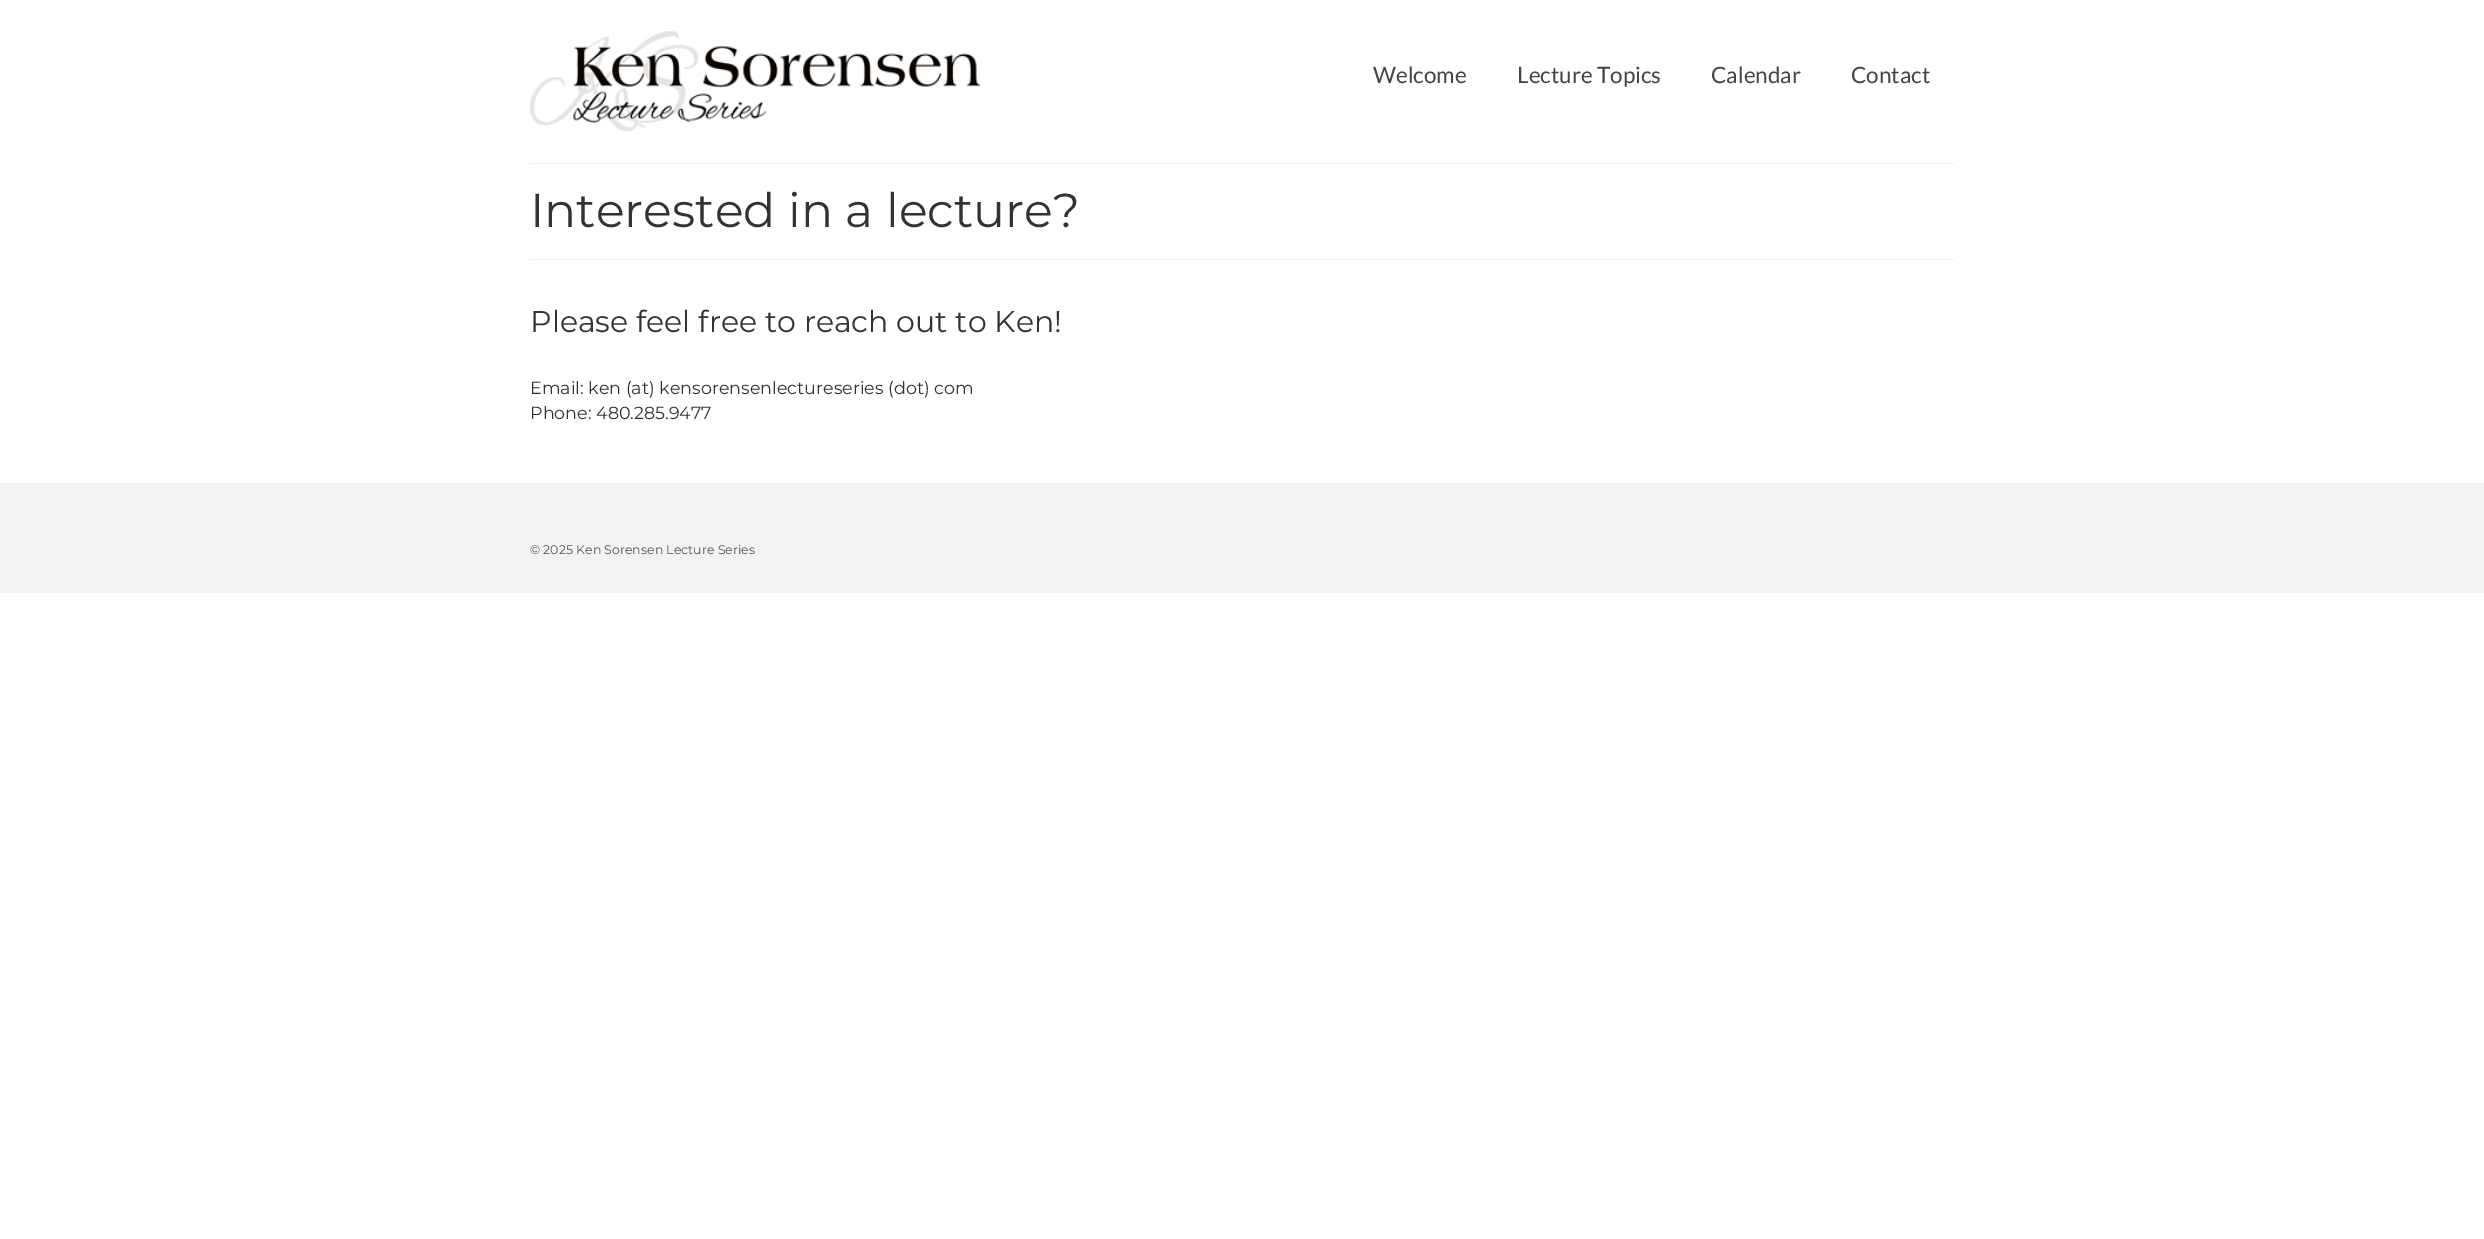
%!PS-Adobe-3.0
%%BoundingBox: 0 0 2484 1239
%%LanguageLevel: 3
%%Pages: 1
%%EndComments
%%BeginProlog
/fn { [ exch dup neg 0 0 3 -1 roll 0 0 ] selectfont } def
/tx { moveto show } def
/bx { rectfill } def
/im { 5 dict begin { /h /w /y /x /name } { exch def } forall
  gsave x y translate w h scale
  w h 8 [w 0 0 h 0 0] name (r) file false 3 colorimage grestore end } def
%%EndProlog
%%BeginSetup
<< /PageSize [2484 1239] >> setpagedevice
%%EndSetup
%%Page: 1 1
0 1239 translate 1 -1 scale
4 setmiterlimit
1 setgray
0 0 2484 1239 bx
(image0.raw) 530 31 450 101 im
/Lato-Regular 22.5 fn
0.267 setgray
(Welcome) 1373 83 tx
(Lecture Topics) 1517 83 tx
(Calendar) 1711 83 tx
(Contact) 1851 83 tx
0.949 setgray
530 163 1425 1 bx
530 259 1425 1 bx
/Montserrat-Regular 47.5 fn
0.2 setgray
(Interested in a lecture?) 530 227 tx
/Montserrat-Regular 30 fn
(Please feel free to reach out to Ken!) 530 332 tx
/Montserrat-Regular 17.5 fn
(Email: ken \(at\) kensorensenlectureseries \(dot\) com) 530 394 tx
(Phone: 480.285.9477) 530 419 tx
0.949 setgray
0 483 2484 110 bx
/Montserrat-Regular 12.5 fn
0.333 setgray
(© 2025 Ken Sorensen Lecture Series) 530 554 tx
showpage
%%EOF
